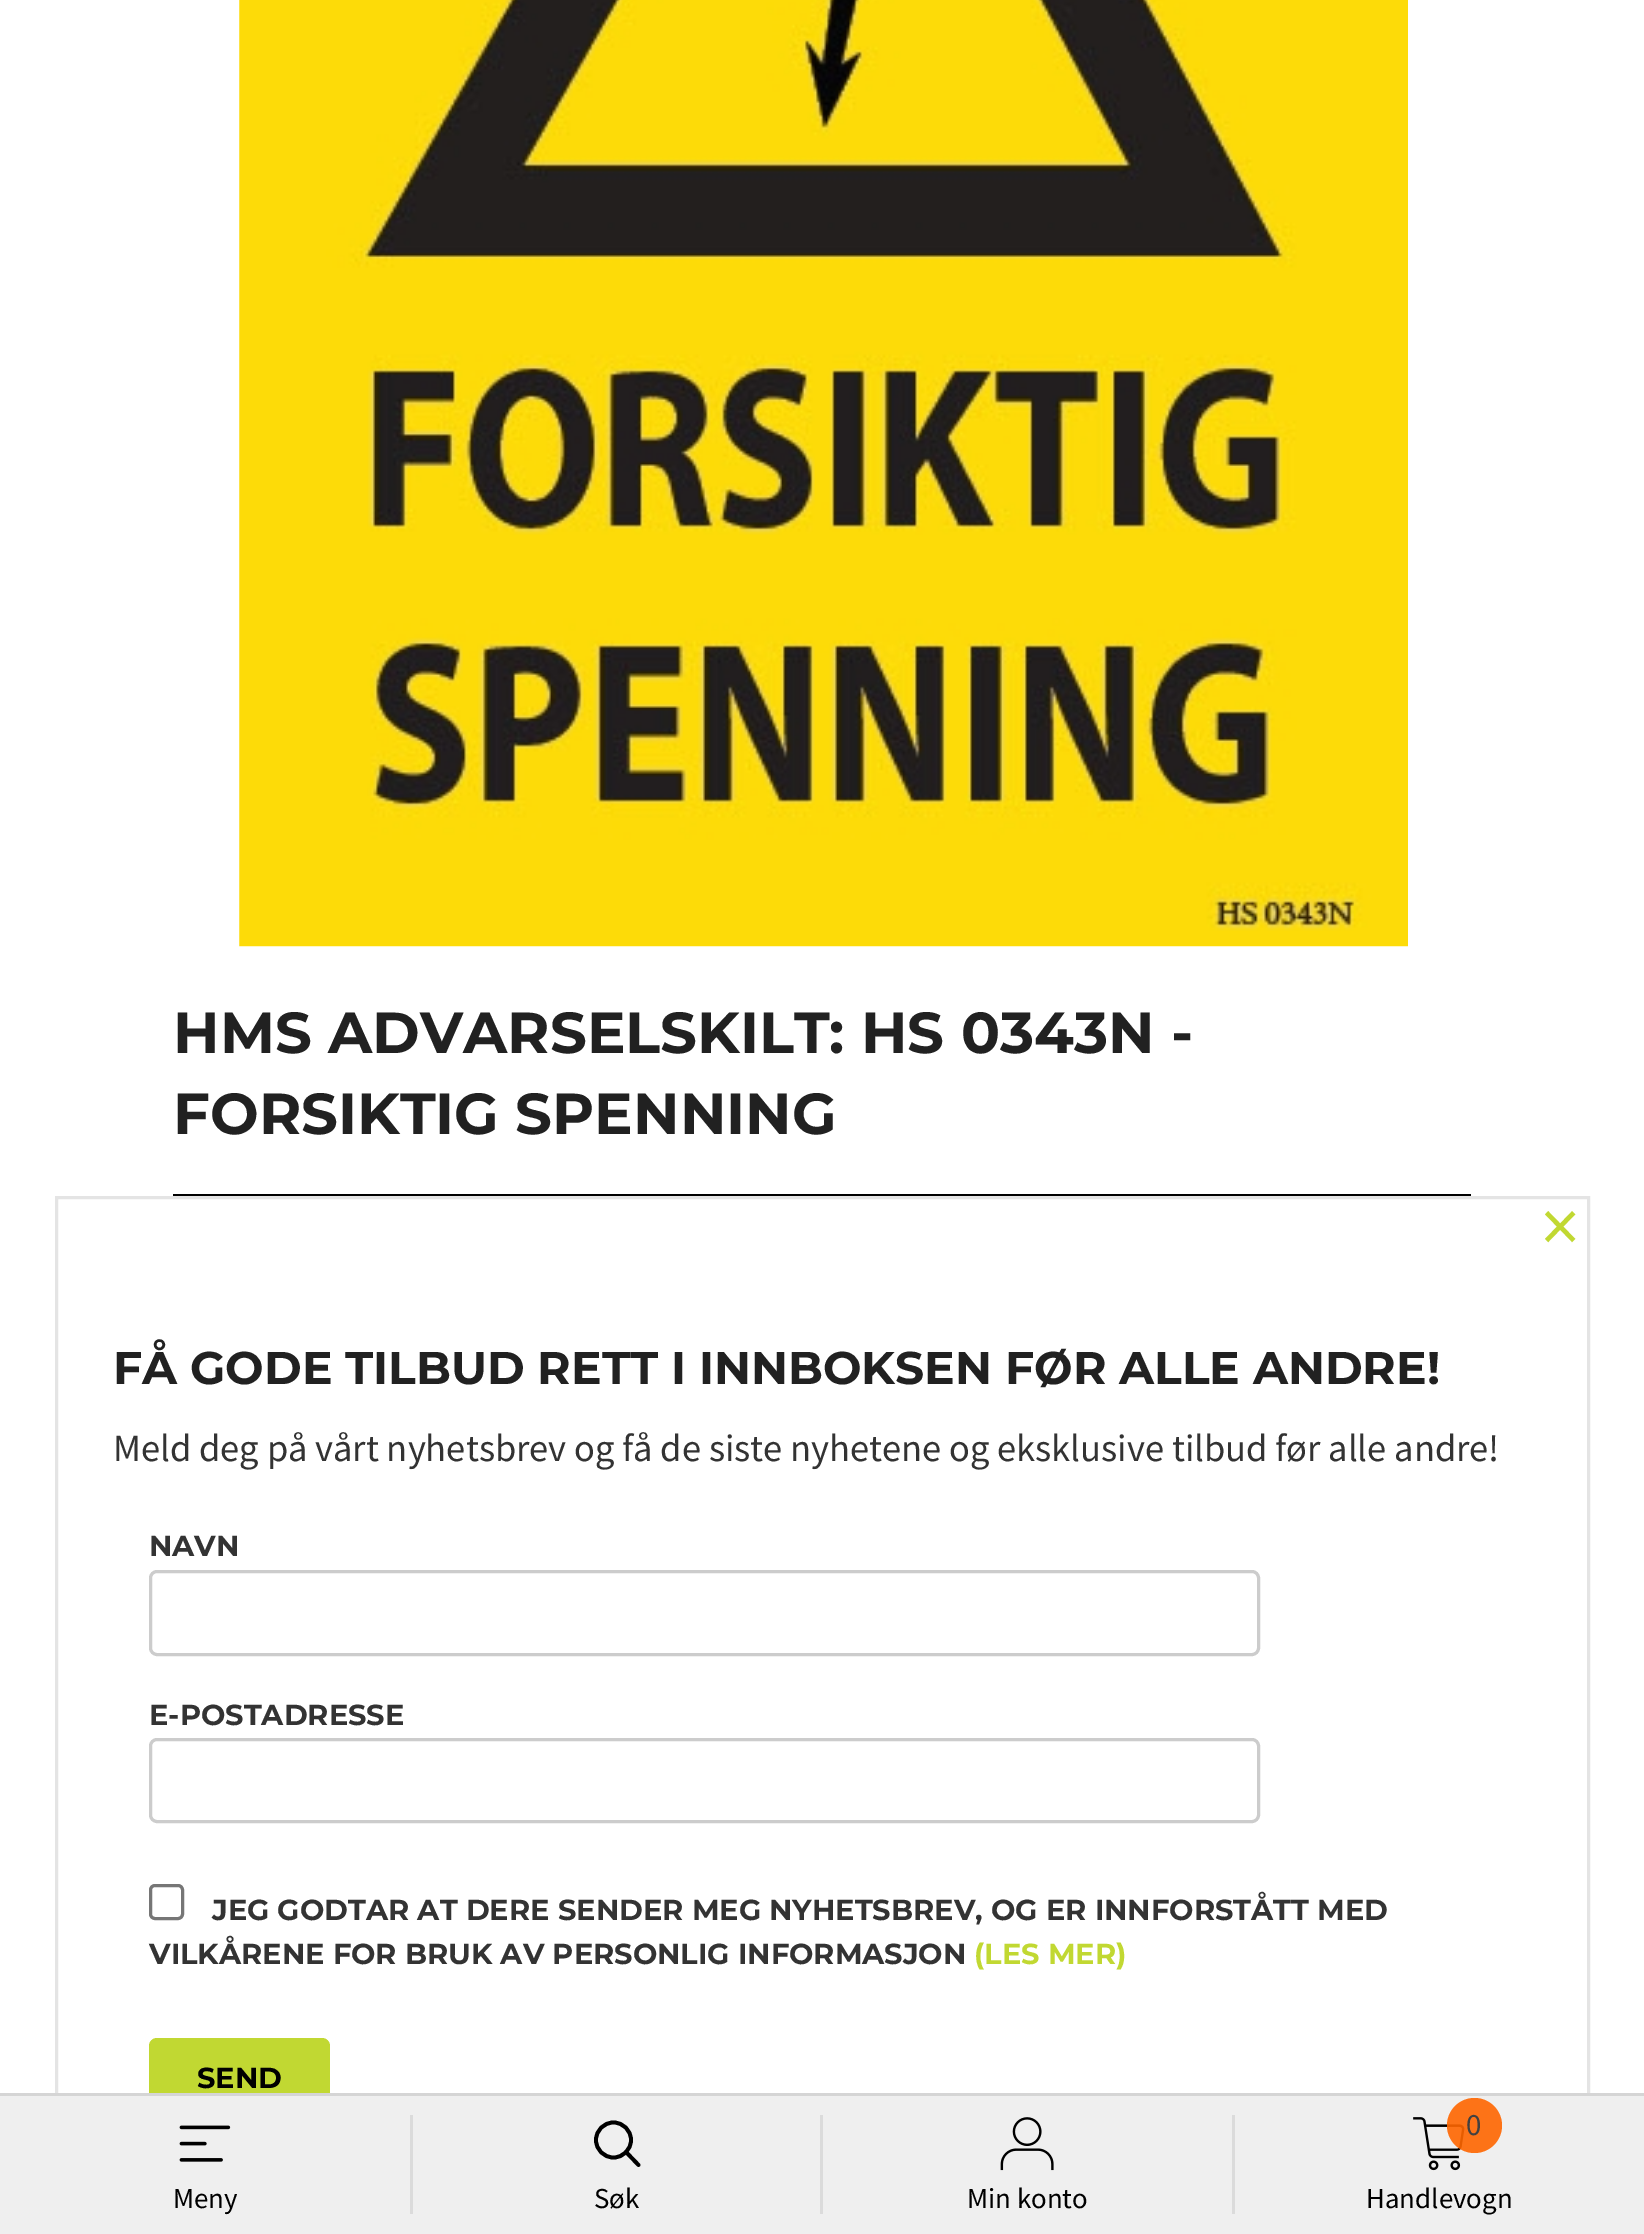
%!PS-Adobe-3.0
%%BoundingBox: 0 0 1644 2234
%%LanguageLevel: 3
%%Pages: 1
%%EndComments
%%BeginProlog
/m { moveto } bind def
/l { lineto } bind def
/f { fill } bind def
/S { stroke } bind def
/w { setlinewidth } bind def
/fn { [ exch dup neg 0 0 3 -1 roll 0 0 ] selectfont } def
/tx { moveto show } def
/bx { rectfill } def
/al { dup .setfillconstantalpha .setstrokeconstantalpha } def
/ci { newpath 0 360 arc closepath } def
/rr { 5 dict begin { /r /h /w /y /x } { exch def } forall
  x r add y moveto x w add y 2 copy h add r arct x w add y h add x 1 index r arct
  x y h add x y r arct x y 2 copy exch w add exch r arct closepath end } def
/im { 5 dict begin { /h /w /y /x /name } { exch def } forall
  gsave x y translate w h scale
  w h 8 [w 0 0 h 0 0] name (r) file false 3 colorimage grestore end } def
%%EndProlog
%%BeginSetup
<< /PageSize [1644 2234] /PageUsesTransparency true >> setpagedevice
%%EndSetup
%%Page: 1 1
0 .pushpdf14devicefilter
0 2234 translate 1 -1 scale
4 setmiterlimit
1 setgray
0 0 1644 2234 bx
(image0.raw) 239 0 1169 947 im
0 setgray
173 1194 1298 2 bx
/Montserrat-Bold 57.75 fn
0.129 setgray
(HMS ADVARSELSKILT: HS 0343N -) 173 1053 tx
(FORSIKTIG SPENNING) 173 1134 tx
0.894 setgray
3 w
56.5 1197.5 1532 982 rectstroke
/SourceSansPro-Regular 77 fn
0.757 0.847 0.196 setrgbcolor
(×) 1541 1252 tx
/Montserrat-Bold 45.75 fn
0.129 setgray
113 1384 m -0.25 0 32 (FÅ GODE TILBUD RETT I INNBOKSEN FØR ALLE ANDRE!) widthshow
/SourceSansPro-Regular 38.5 fn
0.2 setgray
(Meld deg på vårt nyhetsbrev og få de siste nyhetene og eksklusive tilbud før alle andre!) 113 1461 tx
/Montserrat-Bold 28.9 fn
(NAVN) 149 1556 tx
0.8 setgray
150.5 1571.5 1108 83 6.5 rr S
0.2 setgray
(E-POSTADRESSE) 149 1725 tx
0.8 setgray
150.5 1739.5 1108 82 6.5 rr S
0.463 setgray
150.5 1885.5 32 33 4.5 rr S
0.2 setgray
(JEG GODTAR AT DERE SENDER MEG NYHETSBREV, OG ER INNFORSTÅTT MED) 212 1920 tx
(VILKÅRENE FOR BRUK AV PERSONLIG INFORMASJON) 149 1964 tx
0.757 0.847 0.196 setrgbcolor
(\(LES MER\)) 974 1964 tx
149 2038 181 85 8 rr f
0 setgray
(SEND) 197 2088 tx
0.937 setgray
0 2096 1644 138 bx
0.835 setgray
0 2093 1644 3 bx
(image1.raw) 179 2125 52 37 im
/SourceSansPro-Regular 28.9 fn
0 setgray
(Meny) 173 2208 tx
0.859 setgray
410 2115 3 99 bx
0 setgray
3.8 w
613.5 2140 17.5 ci S
1 setlinecap
638.5 2165 m 626 2152 l S
(Søk) 594 2208 tx
0.859 setgray
820 2115 3 99 bx
(image2.raw) 1000 2117 54 54 im
0 setgray
(Min konto) 967 2208 tx
0.859 setgray
1232 2115 3 99 bx
(image3.raw) 1413 2117 52 54 im
0.9 al
1 0.4 0 setrgbcolor
1474.5 2125.5 27.5 ci f
/SourceSansPro-Regular 31 fn
1 al
0.255 setgray
(0) 1466 2135 tx
/SourceSansPro-Regular 28.9 fn
0 setgray
(Handlevogn) 1366 2208 tx
.poppdf14devicefilter showpage
%%EOF
